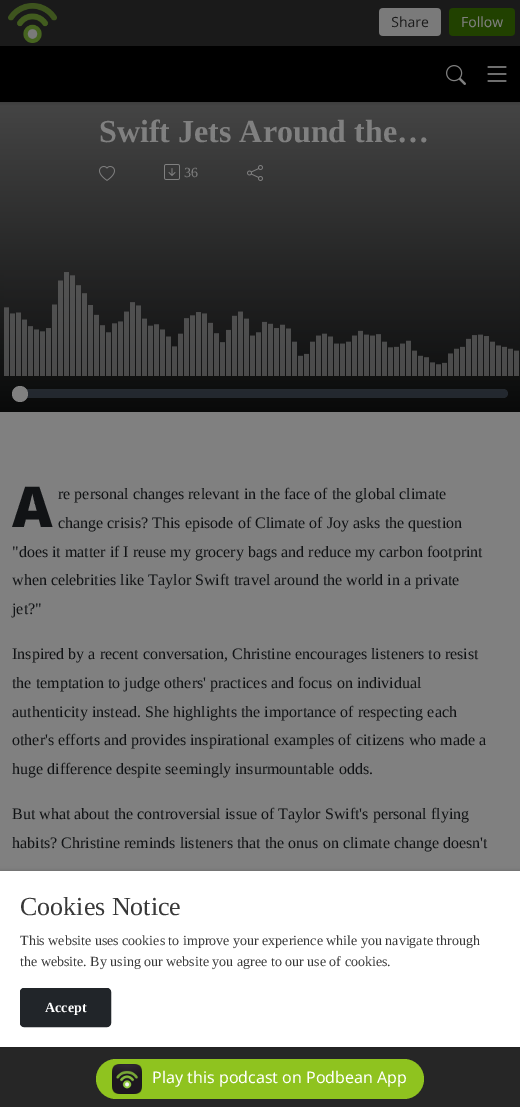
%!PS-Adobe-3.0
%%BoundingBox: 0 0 520 1107
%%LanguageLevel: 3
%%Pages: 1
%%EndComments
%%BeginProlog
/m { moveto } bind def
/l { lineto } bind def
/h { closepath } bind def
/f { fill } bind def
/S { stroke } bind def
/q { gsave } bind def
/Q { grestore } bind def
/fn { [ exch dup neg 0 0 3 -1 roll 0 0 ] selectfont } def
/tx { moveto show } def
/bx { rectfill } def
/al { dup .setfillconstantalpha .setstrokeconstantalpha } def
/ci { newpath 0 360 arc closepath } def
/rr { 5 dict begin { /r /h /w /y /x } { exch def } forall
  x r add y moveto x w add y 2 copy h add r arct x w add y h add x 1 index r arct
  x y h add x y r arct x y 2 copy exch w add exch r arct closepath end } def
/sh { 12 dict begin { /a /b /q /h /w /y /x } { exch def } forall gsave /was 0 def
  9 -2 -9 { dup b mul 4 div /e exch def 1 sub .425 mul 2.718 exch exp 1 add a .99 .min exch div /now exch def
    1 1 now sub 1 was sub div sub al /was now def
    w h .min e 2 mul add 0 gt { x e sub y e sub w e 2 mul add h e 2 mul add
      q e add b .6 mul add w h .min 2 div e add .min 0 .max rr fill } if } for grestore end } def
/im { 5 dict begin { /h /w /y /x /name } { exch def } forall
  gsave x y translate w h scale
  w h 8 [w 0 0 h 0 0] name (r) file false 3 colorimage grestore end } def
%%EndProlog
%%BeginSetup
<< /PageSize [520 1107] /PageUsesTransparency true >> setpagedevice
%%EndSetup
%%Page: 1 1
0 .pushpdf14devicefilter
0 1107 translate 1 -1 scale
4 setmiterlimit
0.502 setgray
0 0 520 1107 bx
q 0 102 m 520 102 l 520 412 l 0 412 l h clip newpath
<< /ShadingType 2 /ColorSpace /DeviceRGB /Coords [260 -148 260 412] /Extend [true true] /Function << /FunctionType 2 /Domain [0 1] /C0 [0.459 0.459 0.459] /C1 [0.035 0.039 0.039] /N 1 >> >> shfill Q
0 setgray
0 46 520 56 0 2 0.2 sh
0.102 setgray
0 0 520 46 bx
(image0.raw) 8 3 507 40 im
0 setgray
0 46 520 56 bx
(image1.raw) 446 65 20 20 im
(image2.raw) 487 66 20 16 im
/LiberationSerif-Bold 32 fn
0.502 setgray
(Swift Jets Around the…) 99 142 tx
(image3.raw) 99 166 16 15 im
(image4.raw) 164 164 16 16 im
/LiberationSerif-Regular 14 fn
(36) 184 177 tx
(image5.raw) 247 165 16 16 im
(image6.raw) 4 272 515 104 im
0.5 al
0.227 0.263 0.314 setrgbcolor
12 389 496 9 4.5 rr f
1 al
0.502 setgray
20 394 8 ci f
/NotoSans-Black 56 fn
0.067 0.075 0.082 setrgbcolor
(A) 12 527 tx
/LiberationSerif-Regular 16 fn
(re personal changes relevant in the face of the global climate) 58 499 tx
(change crisis? This episode of Climate of Joy asks the question) 58 528 tx
("does it matter if I reuse my grocery bags and reduce my carbon footprint) 12 557 tx
(when celebrities like Taylor Swift travel around the world in a private) 12 585 tx
(jet?") 12 614 tx
(Inspired by a recent conversation, Christine encourages listeners to resist) 12 659 tx
(the temptation to judge others' practices and focus on individual) 12 688 tx
(authenticity instead. She highlights the importance of respecting each) 12 717 tx
(other's efforts and provides inspirational examples of citizens who made a) 12 745 tx
(huge difference despite seemingly insurmountable odds.) 12 774 tx
(But what about the controversial issue of Taylor Swift's personal flying) 12 819 tx
(habits? Christine reminds listeners that the onus on climate change doesn't) 12 848 tx
0 setgray
0 871 520 176 0 2 0.2 sh
1 setgray
0 871 520 176 bx
/LiberationSerif-Regular 26 fn
0.22 setgray
(Cookies Notice) 20 915 tx
/LiberationSerif-Regular 14 fn
(This website uses cookies to improve your experience while you navigate through) 20 945 tx
(the website. By using our website you agree to our use of cookies.) 20 966 tx
0.129 0.145 0.161 setrgbcolor
20.5 988.5 90 38 3.5 rr q f Q
S
/LiberationSerif-Bold 14 fn
1 setgray
(Accept) 45 1012 tx
0.7 al
0 setgray
0 1047 520 60 bx
1 al
0.561 0.765 0.122 setrgbcolor
96 1059 328 40 20 rr f
(image7.raw) 112 1064 30 30 im
/NotoSans-Regular 16 fn
1 setgray
(Play this podcast on Podbean App) 152 1083 tx
.poppdf14devicefilter showpage
%%EOF
